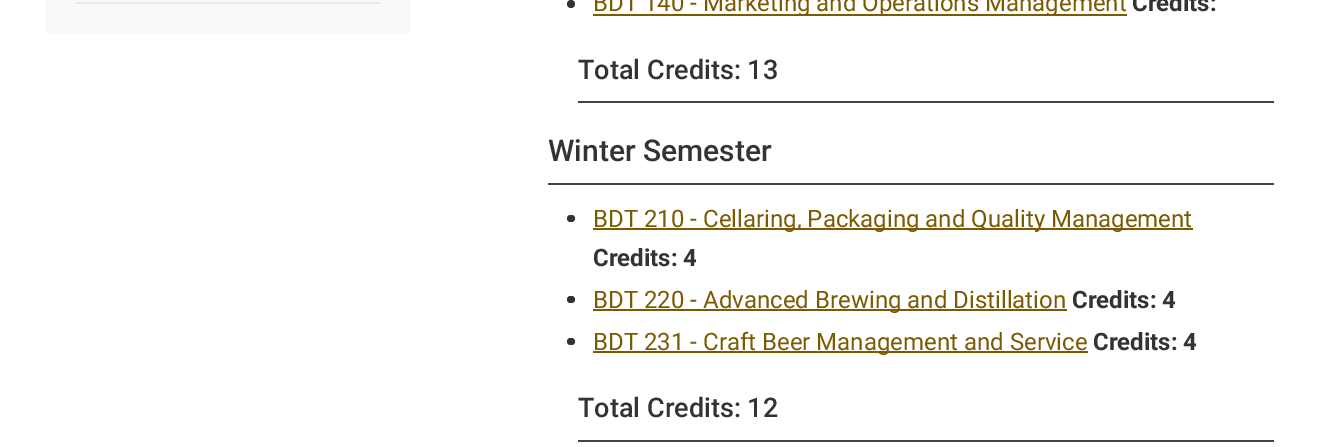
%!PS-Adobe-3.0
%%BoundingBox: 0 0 1319 447
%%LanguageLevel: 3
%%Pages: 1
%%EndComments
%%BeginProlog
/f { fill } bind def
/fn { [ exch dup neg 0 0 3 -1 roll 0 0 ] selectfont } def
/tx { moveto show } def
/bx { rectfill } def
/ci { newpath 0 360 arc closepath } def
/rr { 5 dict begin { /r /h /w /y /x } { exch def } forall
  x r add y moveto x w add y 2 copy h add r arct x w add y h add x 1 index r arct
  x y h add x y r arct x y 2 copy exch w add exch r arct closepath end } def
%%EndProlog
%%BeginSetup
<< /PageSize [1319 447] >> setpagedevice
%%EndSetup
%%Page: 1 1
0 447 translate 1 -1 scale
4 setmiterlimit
1 setgray
0 0 1319 447 bx
0.976 setgray
45 0 366 33 bx
0.918 setgray
75 2 306 2 bx
0.2 setgray
571 4 4 ci f
0.482 0.353 0.004 setrgbcolor
593 14 534 2 bx
/Roboto-Regular 24 fn
(BDT 140 - Marketing and Operations Management) 593 11 tx
/Roboto-Bold 24 fn
0.2 setgray
(Credits:) 1132 11 tx
/Roboto-Medium 27 fn
(Total Credits: 13) 578 79 tx
0.267 setgray
578 101 696 2 bx
/Roboto-Medium 30 fn
0.2 setgray
(Winter Semester) 548 161 tx
0.267 setgray
548 183 726 2 bx
0.2 setgray
567 215 8 7 3.5 rr f
0.482 0.353 0.004 setrgbcolor
593 228 600 2 bx
/Roboto-Regular 24 fn
(BDT 210 - Cellaring, Packaging and Quality Management) 593 227 tx
/Roboto-Bold 24 fn
0.2 setgray
(Credits: 4) 593 266 tx
567 296 8 7 3.5 rr f
0.482 0.353 0.004 setrgbcolor
593 309 474 2 bx
/Roboto-Regular 24 fn
(BDT 220 - Advanced Brewing and Distillation) 593 308 tx
/Roboto-Bold 24 fn
0.2 setgray
(Credits: 4) 1072 308 tx
567 338 8 7 3.5 rr f
0.482 0.353 0.004 setrgbcolor
593 351 495 2 bx
/Roboto-Regular 24 fn
(BDT 231 - Craft Beer Management and Service) 593 350 tx
/Roboto-Bold 24 fn
0.2 setgray
(Credits: 4) 1093 350 tx
/Roboto-Medium 27 fn
(Total Credits: 12) 578 417 tx
0.267 setgray
578 440 696 2 bx
showpage
%%EOF
